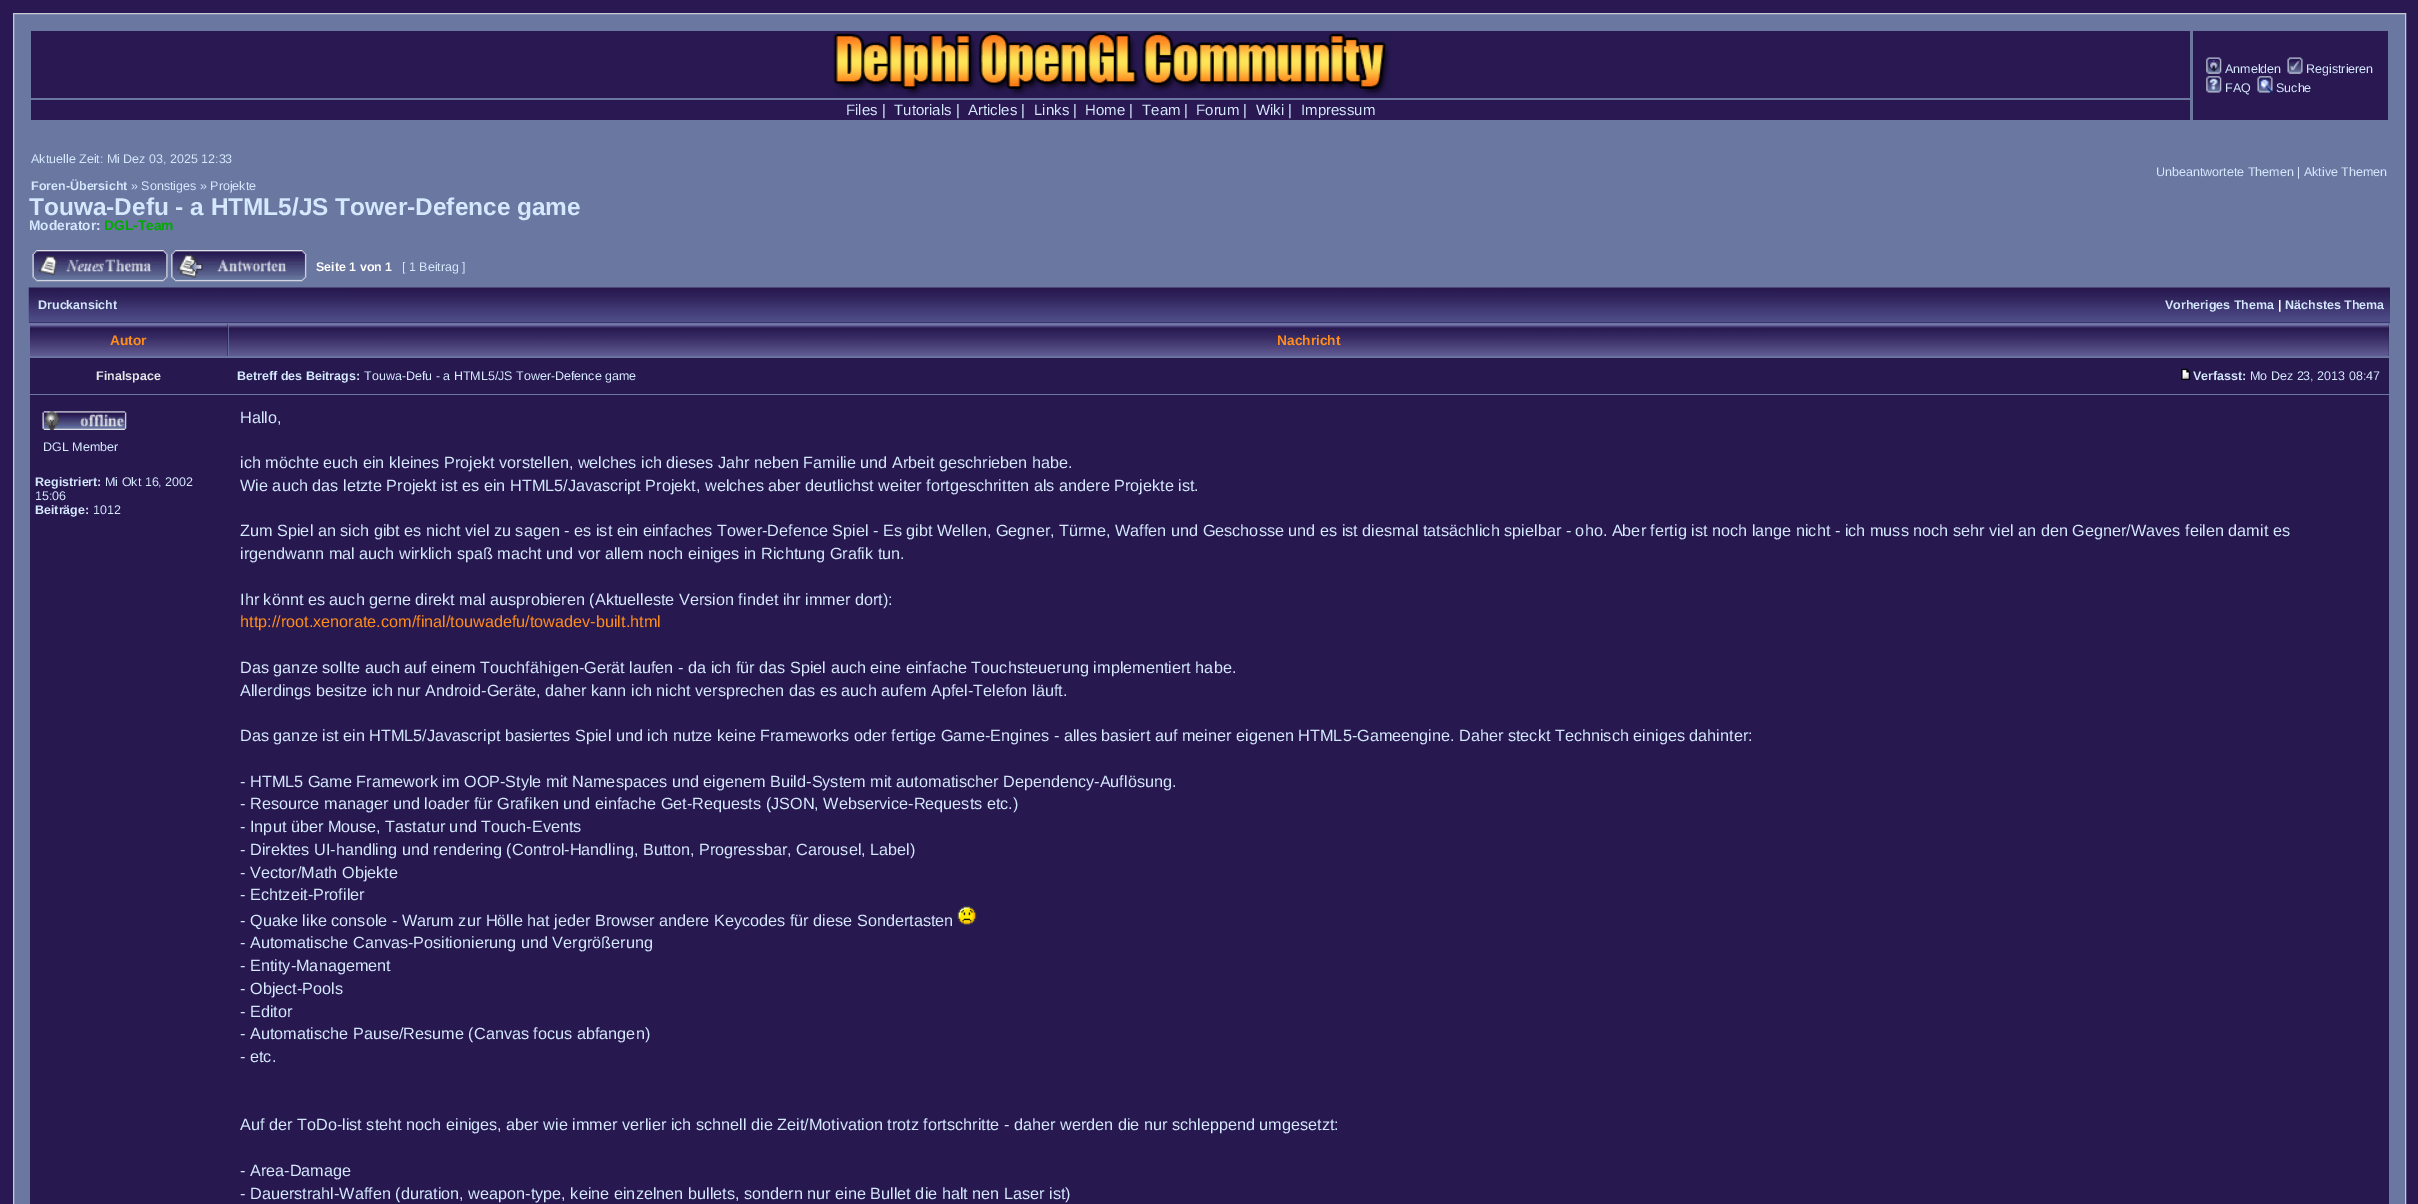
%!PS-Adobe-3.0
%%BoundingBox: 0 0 2418 1204
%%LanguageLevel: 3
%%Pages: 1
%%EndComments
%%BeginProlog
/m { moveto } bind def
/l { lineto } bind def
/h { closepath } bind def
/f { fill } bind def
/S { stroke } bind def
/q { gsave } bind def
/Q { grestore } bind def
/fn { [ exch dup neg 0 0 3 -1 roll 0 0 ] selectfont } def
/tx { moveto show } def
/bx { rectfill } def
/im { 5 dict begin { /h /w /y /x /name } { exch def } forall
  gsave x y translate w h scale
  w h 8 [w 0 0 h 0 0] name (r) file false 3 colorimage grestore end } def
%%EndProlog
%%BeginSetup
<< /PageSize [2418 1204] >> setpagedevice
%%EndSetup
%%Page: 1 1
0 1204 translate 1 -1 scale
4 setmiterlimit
0.161 0.094 0.322 setrgbcolor
0 0 2418 1204 bx
0.412 0.467 0.631 setrgbcolor
13.5 13.5 m 2405.5 13.5 l 2405.5 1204.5 l 13.5 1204.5 l h q f Q
0.784 0.792 0.839 setrgbcolor
S
0.161 0.094 0.322 setrgbcolor
31 31 2159 67 bx
(image0.raw) 833 32 558 64 im
2193 31 195 89 bx
(image1.raw) 2206 57 16 17 im
/LiberationSans-Regular 12.5 fn
0.831 0.91 0.996 setrgbcolor
(Anmelden) 2225 73 tx
(image2.raw) 2287 57 16 17 im
(Registrieren) 2306 73 tx
(image3.raw) 2206 76 16 17 im
(FAQ) 2225 92 tx
(image4.raw) 2257 76 16 17 im
(Suche) 2276 92 tx
0.161 0.094 0.322 setrgbcolor
31 100 2159 20 bx
/LiberationSans-Regular 15 fn
0.831 0.91 0.996 setrgbcolor
(Files |) 846 115 tx
(Tutorials |) 894 115 tx
(Articles |) 968 115 tx
(Links |) 1034 115 tx
(Home |) 1085 115 tx
(Team |) 1142 115 tx
(Forum |) 1196 115 tx
(Wiki |) 1256 115 tx
(Impressum) 1301 115 tx
/LiberationSans-Regular 12.5 fn
(Aktuelle Zeit: Mi Dez 03, 2025 12:33) 31 163 tx
/LiberationSans-Bold 12.5 fn
(Foren-Übersicht) 31 190 tx
/LiberationSans-Regular 12.5 fn
(» Sonstiges » Projekte) 131 190 tx
(Unbeantwortete Themen | Aktive Themen) 2156 176 tx
/LiberationSans-Bold 24.4 fn
(Touwa-Defu - a HTML5/JS Tower-Defence game) 29 215 tx
/LiberationSans-Bold 13.75 fn
(Moderator:) 29 230 tx
0 0.667 0 setrgbcolor
(DGL-Team) 104 230 tx
(image5.raw) 32 250 136 32 im
(image6.raw) 171 250 136 32 im
/LiberationSans-Bold 12.5 fn
1 setgray
(Seite 1 von 1) 316 271 tx
/LiberationSans-Regular 12.5 fn
0.831 0.91 0.996 setrgbcolor
([ 1 Beitrag ]) 402 271 tx
0.161 0.094 0.322 setrgbcolor
29 322 2361 1 bx
(image7.raw) 28 287 2362 36 im
/LiberationSans-Bold 12.5 fn
0.831 0.91 0.996 setrgbcolor
(Druckansicht) 38 309 tx
(Vorheriges Thema) 2165 309 tx
1 setgray
(|) 2278 309 tx
0.831 0.91 0.996 setrgbcolor
(Nächstes Thema) 2285 309 tx
0.161 0.094 0.322 setrgbcolor
227 324 1 32 bx
(image8.raw) 30 324 198 33 im
/LiberationSans-Bold 13.75 fn
1 0.553 0.114 setrgbcolor
(Autor) 110 345 tx
(image9.raw) 228 324 2161 33 im
(Nachricht) 1277 345 tx
0.157 0.094 0.314 setrgbcolor
30 358 2359 36 bx
/LiberationSans-Bold 12.5 fn
0.906 setgray
(Finalspace) 96 380 tx
0.831 0.91 0.996 setrgbcolor
(Betreff des Beitrags:) 237 380 tx
/LiberationSans-Regular 12.5 fn
(Touwa-Defu - a HTML5/JS Tower-Defence game) 364 380 tx
(image10.raw) 2181 368 10 12 im
/LiberationSans-Bold 12.5 fn
(Verfasst:) 2193 380 tx
/LiberationSans-Regular 12.5 fn
(Mo Dez 23, 2013 08:47) 2250 380 tx
0.157 0.094 0.314 setrgbcolor
30 395 2359 809 bx
(image11.raw) 42 411 85 19 im
0.831 0.91 0.996 setrgbcolor
(DGL Member) 43 451 tx
/LiberationSans-Bold 12.5 fn
(Registriert:) 35 486 tx
/LiberationSans-Regular 12.5 fn
(Mi Okt 16, 2002) 105 486 tx
(15:06) 35 500 tx
/LiberationSans-Bold 12.5 fn
(Beiträge:) 35 514 tx
/LiberationSans-Regular 12.5 fn
(1012) 93 514 tx
/LiberationSans-Regular 16.25 fn
(Hallo,) 240 423 tx
(ich möchte euch ein kleines Projekt vorstellen, welches ich dieses Jahr neben Familie und Arbeit geschrieben habe.) 240 468 tx
(Wie auch das letzte Projekt ist es ein HTML5/Javascript Projekt, welches aber deutlichst weiter fortgeschritten als andere Projekte ist.) 240 491 tx
(Zum Spiel an sich gibt es nicht viel zu sagen - es ist ein einfaches Tower-Defence Spiel - Es gibt Wellen, Gegner, Türme, Waffen und Geschosse und es ist diesmal tatsächlich spielbar - oho. Aber fertig ist noch lange nicht - ich muss noch sehr viel an den Gegner/Waves feilen damit es) 240 536 tx
(irgendwann mal auch wirklich spaß macht und vor allem noch einiges in Richtung Grafik tun.) 240 559 tx
(Ihr könnt es auch gerne direkt mal ausprobieren \(Aktuelleste Version findet ihr immer dort\):) 240 605 tx
1 0.553 0.114 setrgbcolor
(http://root.xenorate.com/final/touwadefu/towadev-built.html) 240 627 tx
0.831 0.91 0.996 setrgbcolor
(Das ganze sollte auch auf einem Touchfähigen-Gerät laufen - da ich für das Spiel auch eine einfache Touchsteuerung implementiert habe.) 240 673 tx
(Allerdings besitze ich nur Android-Geräte, daher kann ich nicht versprechen das es auch aufem Apfel-Telefon läuft.) 240 696 tx
(Das ganze ist ein HTML5/Javascript basiertes Spiel und ich nutze keine Frameworks oder fertige Game-Engines - alles basiert auf meiner eigenen HTML5-Gameengine. Daher steckt Technisch einiges dahinter:) 240 741 tx
(- HTML5 Game Framework im OOP-Style mit Namespaces und eigenem Build-System mit automatischer Dependency-Auflösung.) 240 787 tx
(- Resource manager und loader für Grafiken und einfache Get-Requests \(JSON, Webservice-Requests etc.\)) 240 809 tx
(- Input über Mouse, Tastatur und Touch-Events) 240 832 tx
(- Direktes UI-handling und rendering \(Control-Handling, Button, Progressbar, Carousel, Label\)) 240 855 tx
(- Vector/Math Objekte) 240 878 tx
(- Echtzeit-Profiler) 240 900 tx
(- Quake like console - Warum zur Hölle hat jeder Browser andere Keycodes für diese Sondertasten) 240 926 tx
(image12.raw) 957 906 20 19 im
(- Automatische Canvas-Positionierung und Vergrößerung) 240 948 tx
(- Entity-Management) 240 971 tx
(- Object-Pools) 240 994 tx
(- Editor) 240 1017 tx
(- Automatische Pause/Resume \(Canvas focus abfangen\)) 240 1039 tx
(- etc.) 240 1062 tx
(Auf der ToDo-list steht noch einiges, aber wie immer verlier ich schnell die Zeit/Motivation trotz fortschritte - daher werden die nur schleppend umgesetzt:) 240 1130 tx
(- Area-Damage) 240 1176 tx
(- Dauerstrahl-Waffen \(duration, weapon-type, keine einzelnen bullets, sondern nur eine Bullet die halt nen Laser ist\)) 240 1199 tx
showpage
%%EOF
